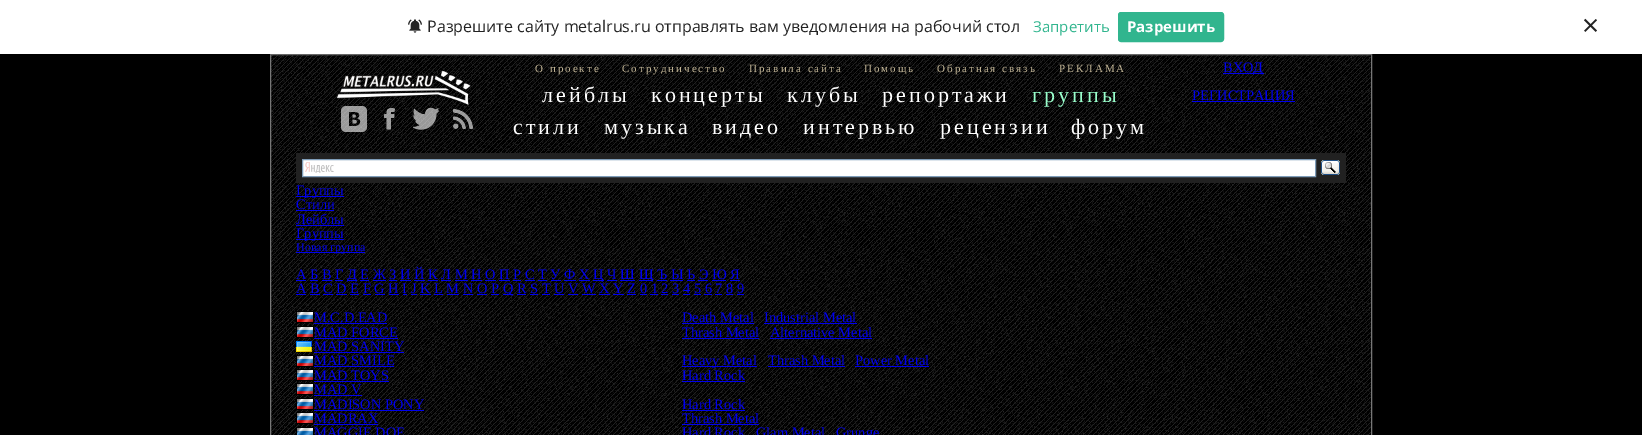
%!PS-Adobe-3.0
%%BoundingBox: 0 0 1642 435
%%LanguageLevel: 3
%%Pages: 1
%%EndComments
%%BeginProlog
/m { moveto } bind def
/f { fill } bind def
/S { stroke } bind def
/q { gsave } bind def
/Q { grestore } bind def
/fn { [ exch dup neg 0 0 3 -1 roll 0 0 ] selectfont } def
/tx { moveto show } def
/bx { rectfill } def
/al { dup .setfillconstantalpha .setstrokeconstantalpha } def
/rr { 5 dict begin { /r /h /w /y /x } { exch def } forall
  x r add y moveto x w add y 2 copy h add r arct x w add y h add x 1 index r arct
  x y h add x y r arct x y 2 copy exch w add exch r arct closepath end } def
/sh { 12 dict begin { /a /b /q /h /w /y /x } { exch def } forall gsave /was 0 def
  9 -2 -9 { dup b mul 4 div /e exch def 1 sub .425 mul 2.718 exch exp 1 add a .99 .min exch div /now exch def
    1 1 now sub 1 was sub div sub al /was now def
    w h .min e 2 mul add 0 gt { x e sub y e sub w e 2 mul add h e 2 mul add
      q e add b .6 mul add w h .min 2 div e add .min 0 .max rr fill } if } for grestore end } def
/im { 5 dict begin { /h /w /y /x /name } { exch def } forall
  gsave x y translate w h scale
  w h 8 [w 0 0 h 0 0] name (r) file false 3 colorimage grestore end } def
%%EndProlog
%%BeginSetup
<< /PageSize [1642 435] /PageUsesTransparency true >> setpagedevice
%%EndSetup
%%Page: 1 1
0 .pushpdf14devicefilter
0 435 translate 1 -1 scale
4 setmiterlimit
0 setgray
0 0 1642 435 bx
(image1.raw) 271 55 1100 380 im
0.467 setgray
270.5 54.5 1101 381 rectstroke
0 setgray
0 1 1642 54 0 1 0.2 sh
1 setgray
0 0 1642 54 bx
(image0.raw) 408 19 14 14 im
/OpenSans-Regular 16 fn
0.133 setgray
(Разрешите сайту metalrus.ru отправлять вам уведомления на рабочий стол) 427 32 tx
/OpenSans-Regular 15 fn
0.192 0.71 0.557 setrgbcolor
(Запретить) 1033 32 tx
1118.5 12.5 105 29 2.5 rr q f Q
S
/OpenSans-Bold 15 fn
1 setgray
(Разрешить) 1127 32 tx
/OpenSans-Regular 30 fn
0.133 setgray
(×) 1582 36 tx
(image2.raw) 337 70 134 35 im
(image3.raw) 341 106 26 26 im
(image4.raw) 384 108 11 22 im
(image5.raw) 413 107 26 23 im
(image6.raw) 453 109 20 20 im
/LiberationSerif-Regular 11 fn
0.757 0.706 0.584 setrgbcolor
535 72 m 2 0 (О проекте) ashow
622 72 m 2 0 (Сотрудничество) ashow
749 72 m 2 0 (Правила сайта) ashow
864 72 m 2 0 (Помощь) ashow
937 72 m 2 0 (Обратная связь) ashow
1059 72 m 2 0 (РЕКЛАМА) ashow
/LiberationSerif-Regular 22 fn
1 setgray
542 102 m 3 0 (лейблы) ashow
651 102 m 3 0 (концерты) ashow
787 102 m 3 0 (клубы) ashow
882 102 m 3 0 (репортажи) ashow
0.6 1 0.8 setrgbcolor
1032 102 m 3 0 (группы) ashow
1 setgray
513 134 m 3 0 (стили) ashow
604 134 m 3 0 (музыка) ashow
712 134 m 3 0 (видео) ashow
803 134 m 3 0 (интервью) ashow
940 134 m 3 0 (рецензии) ashow
1071 134 m 3 0 (форум) ashow
0 0 0.933 setrgbcolor
1223 73 41 1 bx
/LiberationSerif-Regular 14.4 fn
(ВХОД) 1223 72 tx
1192 101 103 1 bx
(РЕГИСТРАЦИЯ) 1192 100 tx
0.129 setgray
296 153 1050 30 bx
1 setgray
303 160 1012 16 bx
(image7.raw) 305 162 29 11 im
0.498 0.616 0.725 setrgbcolor
302.5 159.5 1013 17 rectstroke
(image8.raw) 1321 160 19 15 im
0 0 0.933 setrgbcolor
296 196 48 1 bx
(Группы) 296 195 tx
(Стили) 296 209 tx
296 210 38 1 bx
(Лейблы) 296 224 tx
296 225 48 1 bx
296 239 48 1 bx
(Группы) 296 238 tx
296 252 69 1 bx
/LiberationSerif-Regular 12 fn
(Новая группа) 296 251 tx
/LiberationSerif-Regular 14.4 fn
(А Б В Г) 296 279 tx
296 280 10 1 bx
347 280 10 1 bx
(Д Е Ж З И Й К Л М Н О П Р С Т У Ф Х) 347 279 tx
593 280 11 1 bx
(Ц Ч Ш) 593 279 tx
639 280 14 1 bx
(Щ Ъ Ы Ь Э Ю Я) 639 279 tx
310 280 8 1 bx
322 280 10 1 bx
335 280 8 1 bx
360 280 9 1 bx
373 280 13 1 bx
389 280 8 1 bx
400 280 11 1 bx
414 280 11 1 bx
428 280 10 1 bx
441 280 10 1 bx
455 280 13 1 bx
471 280 11 1 bx
485 280 11 1 bx
499 280 11 1 bx
513 280 8 1 bx
525 280 10 1 bx
538 280 9 1 bx
551 280 10 1 bx
564 280 12 1 bx
579 280 11 1 bx
607 280 10 1 bx
620 280 15 1 bx
657 280 10 1 bx
670 280 13 1 bx
687 280 8 1 bx
698 280 10 1 bx
712 280 14 1 bx
730 280 10 1 bx
(A B C D E F G H I J K L M N O P) 296 293 tx
296 294 10 1 bx
503 294 10 1 bx
(Q R S T U V W X Y Z 0 1 2 3 4 5 6 7 8 9) 503 293 tx
310 294 10 1 bx
323 294 10 1 bx
336 294 11 1 bx
350 294 9 1 bx
363 294 8 1 bx
375 294 10 1 bx
389 294 10 1 bx
403 294 4 1 bx
411 294 6 1 bx
420 294 11 1 bx
434 294 9 1 bx
447 294 12 1 bx
463 294 10 1 bx
477 294 10 1 bx
491 294 8 1 bx
517 294 9 1 bx
530 294 8 1 bx
542 294 8 1 bx
554 294 10 1 bx
568 294 10 1 bx
582 294 14 1 bx
599 294 11 1 bx
613 294 11 1 bx
627 294 9 1 bx
640 294 7 1 bx
650 294 8 1 bx
661 294 7 1 bx
672 294 7 1 bx
683 294 7 1 bx
694 294 7 1 bx
704 294 8 1 bx
715 294 7 1 bx
726 294 7 1 bx
737 294 7 1 bx
(image9.raw) 296 311 18 12 im
(M.C.D.EAD) 314 322 tx
314 323 73 1 bx
(Death Metal) 682 322 tx
682 323 72 1 bx
(Industrial Metal) 764 322 tx
764 323 93 1 bx
(image9.raw) 296 326 18 12 im
(MAD FORCE) 314 337 tx
314 338 84 1 bx
(Thrash Metal) 682 337 tx
682 338 77 1 bx
(Alternative Metal) 770 337 tx
770 338 102 1 bx
(image10.raw) 296 341 16 11 im
(MAD SANITY) 314 351 tx
314 352 90 1 bx
(image9.raw) 296 355 18 12 im
(MAD SMILE) 314 365 tx
314 366 80 1 bx
682 366 75 1 bx
(Heavy Metal) 682 365 tx
(Thrash Metal) 768 365 tx
768 366 77 1 bx
(Power Metal) 855 365 tx
855 366 74 1 bx
(image9.raw) 296 369 18 12 im
(MAD TOYS) 314 380 tx
314 381 75 1 bx
(Hard Rock) 682 380 tx
682 381 63 1 bx
(image9.raw) 296 383 18 12 im
(MAD V) 314 394 tx
314 395 48 1 bx
(image9.raw) 296 398 18 12 im
(MADISON PONY) 314 409 tx
314 410 110 1 bx
(Hard Rock) 682 409 tx
682 410 63 1 bx
(image9.raw) 296 412 18 12 im
(MADRAX) 314 423 tx
314 424 64 1 bx
(Thrash Metal) 682 423 tx
682 424 77 1 bx
(image11.raw) 296 427 18 8 im
(MAGGIE DOE) 314 437 tx
(Hard Rock) 682 437 tx
(Glam Metal) 756 437 tx
(Grunge) 836 437 tx
.poppdf14devicefilter showpage
%%EOF
